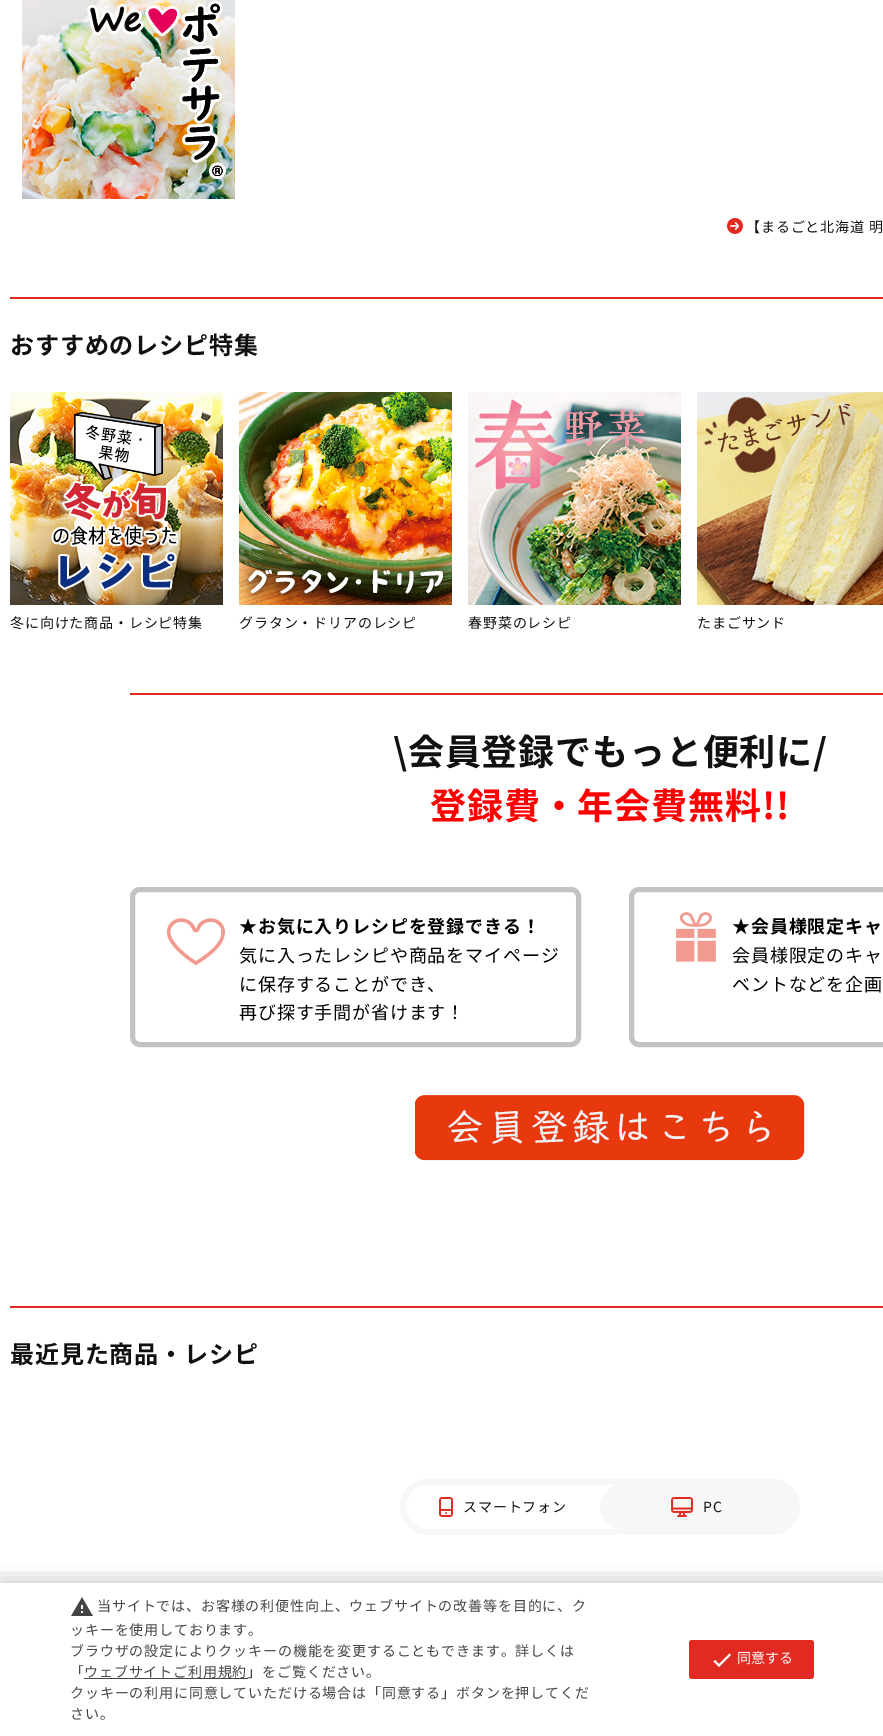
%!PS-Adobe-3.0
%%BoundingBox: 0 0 883 1736
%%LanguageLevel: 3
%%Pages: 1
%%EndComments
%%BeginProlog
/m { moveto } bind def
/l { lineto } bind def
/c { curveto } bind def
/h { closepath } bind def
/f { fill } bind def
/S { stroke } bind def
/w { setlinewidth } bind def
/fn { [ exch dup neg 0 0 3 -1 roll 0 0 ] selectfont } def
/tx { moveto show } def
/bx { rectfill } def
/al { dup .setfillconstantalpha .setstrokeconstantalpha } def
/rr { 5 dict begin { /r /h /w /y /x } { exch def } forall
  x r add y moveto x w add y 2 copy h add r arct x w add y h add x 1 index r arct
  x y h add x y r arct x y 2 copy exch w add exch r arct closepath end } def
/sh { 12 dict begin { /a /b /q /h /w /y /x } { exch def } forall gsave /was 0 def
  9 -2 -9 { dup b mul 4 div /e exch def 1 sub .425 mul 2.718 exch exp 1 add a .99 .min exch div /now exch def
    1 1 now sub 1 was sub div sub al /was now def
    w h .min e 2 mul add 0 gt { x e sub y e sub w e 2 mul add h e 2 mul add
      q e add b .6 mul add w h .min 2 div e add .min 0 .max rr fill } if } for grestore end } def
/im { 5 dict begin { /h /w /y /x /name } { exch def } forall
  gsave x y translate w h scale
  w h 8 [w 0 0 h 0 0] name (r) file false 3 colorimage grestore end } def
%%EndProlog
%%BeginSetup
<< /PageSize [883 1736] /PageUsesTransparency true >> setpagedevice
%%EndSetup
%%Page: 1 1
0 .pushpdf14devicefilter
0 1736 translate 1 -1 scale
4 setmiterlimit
1 setgray
0 0 883 1736 bx
(image0.raw) 22 0 213 199 im
(image1.raw) 727 218 16 16 im
/NotoSansJP-Regular 14 fn
0.067 setgray
746 232 m 0.85 0 (【まるごと北海道 明) ashow
0.882 0.169 0.133 setrgbcolor
10 297 873 2 bx
/NotoSansJP-Bold 24 fn
0.067 setgray
10 354 m 0.85 0 (おすすめのレシピ特集) ashow
(image2.raw) 10 392 213 213 im
/NotoSansJP-Regular 14 fn
10 628 m 0.85 0 (冬に向けた商品・レシピ特集) ashow
(image3.raw) 239 392 213 213 im
239 628 m 0.85 0 (グラタン・ドリアのレシピ) ashow
(image4.raw) 468 392 213 213 im
468 628 m 0.85 0 (春野菜のレシピ) ashow
(image5.raw) 697 392 186 213 im
697 628 m 0.85 0 (たまごサンド) ashow
0.882 0.169 0.133 setrgbcolor
130 693 753 2 bx
/NotoSansJP-Bold 36 fn
0.067 setgray
393 765 m 0.85 0 (\\会員登録でもっと便利に/) ashow
1 0 0 setrgbcolor
430 819 m 0.85 0 (登録費・年会費無料!!) ashow
0.761 0.765 0.761 setrgbcolor
5 w
132.5 889.5 446 155 7.5 rr S
(image6.raw) 167 918 58 48 im
/NotoSansJP-Bold 18 fn
0 setgray
239 933 m 0.85 0 (★お気に入りレシピを登録できる！) ashow
/NotoSansJP-Regular 18 fn
239 962 m 0.85 0 (気に入ったレシピや商品をマイページ) ashow
239 991 m 0.85 0 (に保存することができ、) ashow
239 1019 m 0.85 0 (再び探す手間が省けます！) ashow
0.761 0.765 0.761 setrgbcolor
631.5 889.5 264 155 7.5 rr S
(image7.raw) 675 912 41 50 im
/NotoSansJP-Bold 18 fn
0 setgray
732 933 m 0.85 0 (★会員様限定キャ) ashow
/NotoSansJP-Regular 18 fn
732 962 m 0.85 0 (会員様限定のキャ) ashow
732 991 m 0.85 0 (ベントなどを企画) ashow
(image8.raw) 415 1095 390 66 im
0.882 0.169 0.133 setrgbcolor
10 1306 873 2 bx
/NotoSansJP-Bold 24 fn
0.067 setgray
10 1363 m 0.85 0 (最近見た商品・レシピ) ashow
0.969 setgray
0 1571 883 12 bx
428 1479 m 600 1479 l 600 1535 l 428 1535 l 413 1535 400 1522 400 1507 c 400 1492 413 1479 428 1479 c h 428 1485 m 600 1485 l 600 1529 l 428 1529 l 416 1529 406 1519 406 1507 c 406 1495 416 1485 428 1485 c h eofill
(image9.raw) 439 1497 14 20 im
/NotoSansJP-Regular 14 fn
0.067 setgray
463 1512 m 0.85 0 (スマートフォン) ashow
0.969 setgray
600 1479 m 772 1479 l 787 1479 800 1492 800 1507 c 800 1522 787 1535 772 1535 c 600 1535 l h 600 1485 m 772 1485 l 784 1485 794 1495 794 1507 c 794 1519 784 1529 772 1529 c 600 1529 l h eofill
600 1485 194 44 22 rr f
(image10.raw) 671 1497 22 20 im
0.067 setgray
703 1512 m 0.85 0 (PC) ashow
0 setgray
0 1583 883 153 0 9 0.2 sh
1 setgray
0 1583 883 153 bx
(image11.raw) 71 1597 22 19 im
0.267 setgray
97 1611 m 0.85 0 (当サイトでは、お客様の利便性向上、ウェブサイトの改善等を目的に、ク) ashow
70 1635 m 0.85 0 (ッキーを使用しております。) ashow
70 1656 m 0.85 0 (ブラウザの設定によりクッキーの機能を変更することもできます。詳しくは) ashow
70 1677 m 0.85 0 (「) ashow
84 1678 164 1 bx
84 1677 m 0.85 0 (ウェブサイトご利用規約」をご覧ください。) ashow
70 1698 m 0.85 0 (クッキーの利用に同意していただける場合は「同意する」ボタンを押してくだ) ashow
70 1719 m 0.85 0 (さい。) ashow
0.882 0.169 0.133 setrgbcolor
689 1640 125 39 3 rr f
1 setgray
719 1664 m 729.5 1653.5 l 731 1655 l 719 1667 l 713.5 1661.5 l 715 1660 l h f
(同意する) 737 1663 tx
.poppdf14devicefilter showpage
%%EOF
